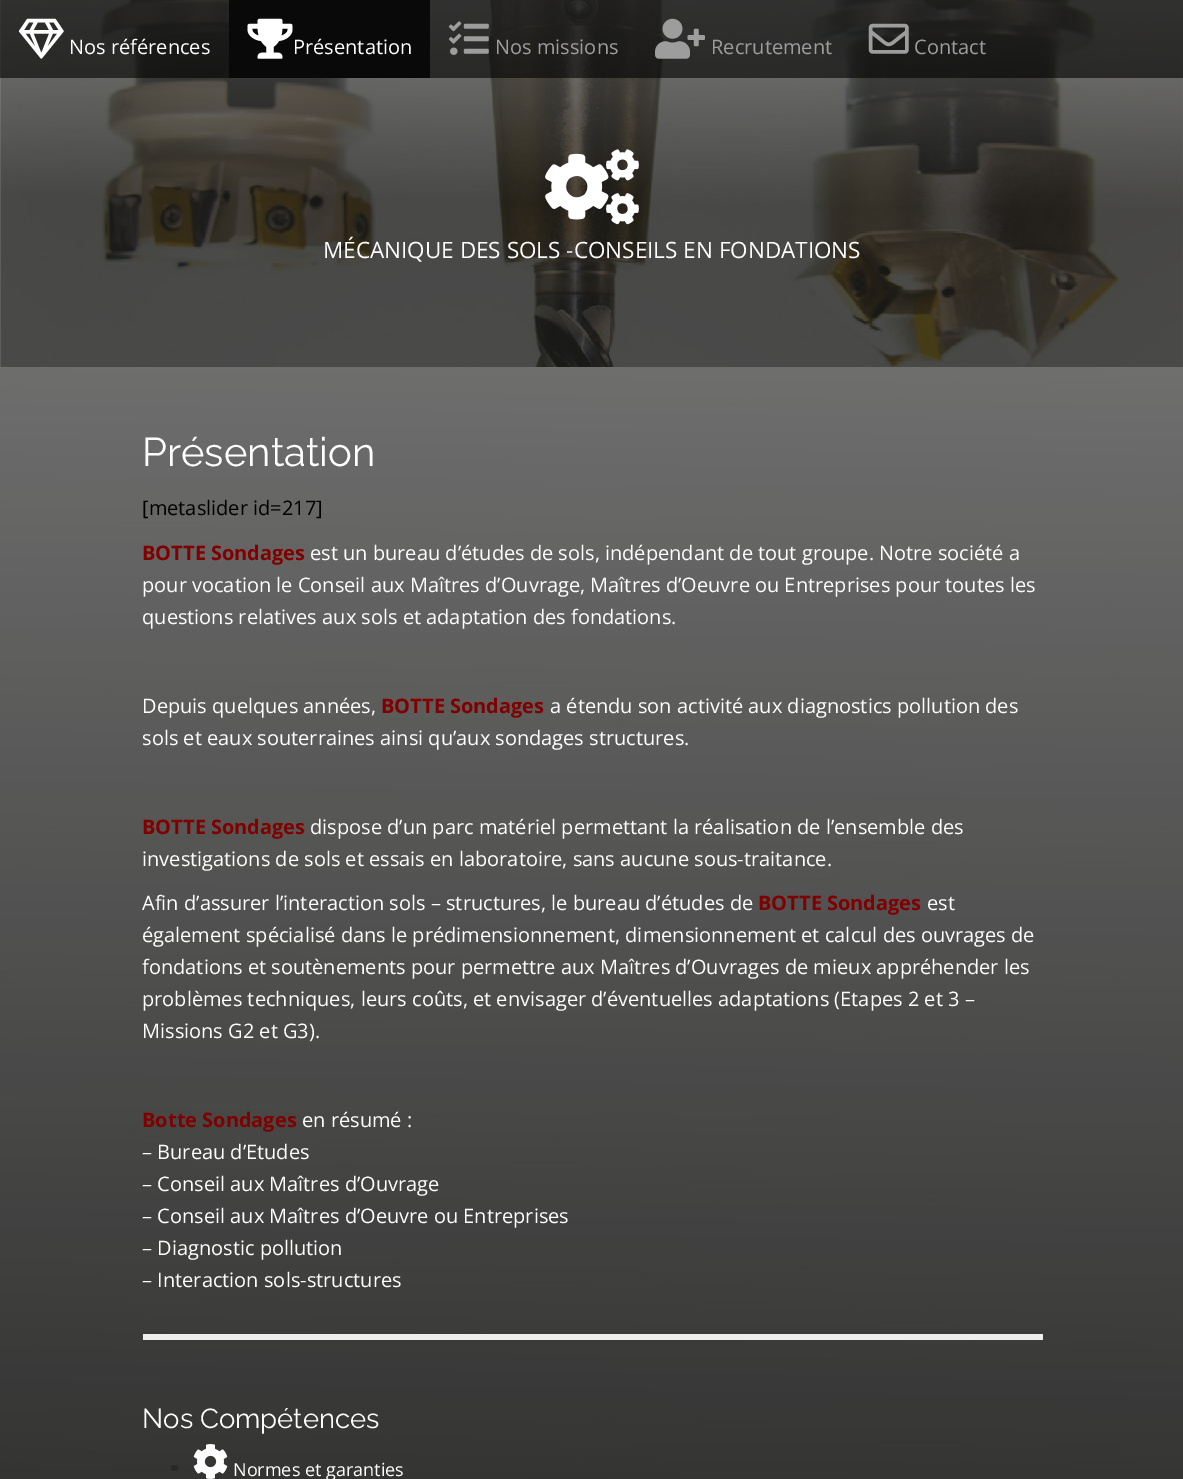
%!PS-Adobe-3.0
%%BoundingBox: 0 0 1183 1479
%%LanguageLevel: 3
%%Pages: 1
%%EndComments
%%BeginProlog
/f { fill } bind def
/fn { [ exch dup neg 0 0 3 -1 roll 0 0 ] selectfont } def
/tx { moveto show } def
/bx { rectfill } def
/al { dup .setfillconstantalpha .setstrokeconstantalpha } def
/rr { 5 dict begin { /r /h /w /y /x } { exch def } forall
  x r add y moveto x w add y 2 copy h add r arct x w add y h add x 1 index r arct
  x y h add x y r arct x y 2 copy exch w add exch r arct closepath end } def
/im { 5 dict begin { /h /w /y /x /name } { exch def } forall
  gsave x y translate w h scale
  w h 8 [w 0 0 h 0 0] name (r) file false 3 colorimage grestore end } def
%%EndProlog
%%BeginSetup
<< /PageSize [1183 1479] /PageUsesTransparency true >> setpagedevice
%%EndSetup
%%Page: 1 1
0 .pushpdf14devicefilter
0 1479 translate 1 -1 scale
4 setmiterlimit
1 setgray
0 0 1183 1479 bx
(image0.raw) 0 367 1183 1112 im
(image6.raw) 0 0 1183 367 im
0.6 al
0 setgray
0 0 1183 78 bx
1 al
(image1.raw) 18 18 46 41 im
/OpenSans-Regular 20 fn
1 setgray
(Nos références) 69 54 tx
0.035 setgray
229 0 201 78 bx
(image2.raw) 247 18 46 41 im
1 setgray
(Présentation) 293 54 tx
(image3.raw) 448 21 41 34 im
0.616 setgray
(Nos missions) 495 54 tx
(image4.raw) 655 18 50 41 im
(Recrutement) 711 54 tx
(image5.raw) 868 23 41 31 im
(Contact) 914 54 tx
(image7.raw) 545 149 94 76 im
/OpenSans-Regular 22.5 fn
1 setgray
(MÉCANIQUE DES SOLS -CONSEILS EN FONDATIONS) 323 258 tx
0.933 setgray
143 1334 900 6 bx
/Raleway-Thin 40 fn
1 setgray
(Présentation) 142 466 tx
/OpenSans-Regular 20 fn
0 setgray
([metaslider id=217]) 142 515 tx
/OpenSans-Bold 20 fn
0.502 0 0 setrgbcolor
(BOTTE Sondages) 142 560 tx
/OpenSans-Regular 20 fn
1 setgray
(est un bureau d’études de sols, indépendant de tout groupe. Notre société a) 310 560 tx
(pour vocation le Conseil aux Maîtres d’Ouvrage, Maîtres d’Oeuvre ou Entreprises pour toutes les) 142 592 tx
(questions relatives aux sols et adaptation des fondations.) 142 624 tx
(Depuis quelques années,) 142 713 tx
/OpenSans-Bold 20 fn
0.502 0 0 setrgbcolor
(BOTTE Sondages) 381 713 tx
/OpenSans-Regular 20 fn
1 setgray
(a étendu son activité aux diagnostics pollution des) 550 713 tx
(sols et eaux souterraines ainsi qu’aux sondages structures.) 142 745 tx
/OpenSans-Bold 20 fn
0.502 0 0 setrgbcolor
(BOTTE Sondages) 142 834 tx
/OpenSans-Regular 20 fn
1 setgray
(dispose d’un parc matériel permettant la réalisation de l’ensemble des) 310 834 tx
(investigations de sols et essais en laboratoire, sans aucune sous-traitance.) 142 866 tx
(Afin d’assurer l’interaction sols – structures, le bureau d’études de) 142 910 tx
/OpenSans-Bold 20 fn
0.502 0 0 setrgbcolor
(BOTTE Sondages) 758 910 tx
/OpenSans-Regular 20 fn
1 setgray
(est) 927 910 tx
(également spécialisé dans le prédimensionnement, dimensionnement et calcul des ouvrages de) 142 942 tx
(fondations et soutènements pour permettre aux Maîtres d’Ouvrages de mieux appréhender les) 142 974 tx
(problèmes techniques, leurs coûts, et envisager d’éventuelles adaptations \(Etapes 2 et 3 –) 142 1006 tx
(Missions G2 et G3\).) 142 1038 tx
/OpenSans-Bold 20 fn
0.502 0 0 setrgbcolor
(Botte Sondages) 142 1127 tx
/OpenSans-Regular 20 fn
1 setgray
(en résumé :) 302 1127 tx
(– Bureau d’Etudes) 142 1159 tx
(– Conseil aux Maîtres d’Ouvrage) 142 1191 tx
(– Conseil aux Maîtres d’Oeuvre ou Entreprises) 142 1223 tx
(– Diagnostic pollution) 142 1255 tx
(– Interaction sols-structures) 142 1287 tx
/Raleway-Thin 27.5 fn
(Nos Compétences) 142 1428 tx
0.157 setgray
171 1465 7 6 3 rr f
(image8.raw) 193 1444 35 35 im
/OpenSans-Regular 18 fn
1 setgray
(Normes et garanties) 233 1476 tx
.poppdf14devicefilter showpage
%%EOF
